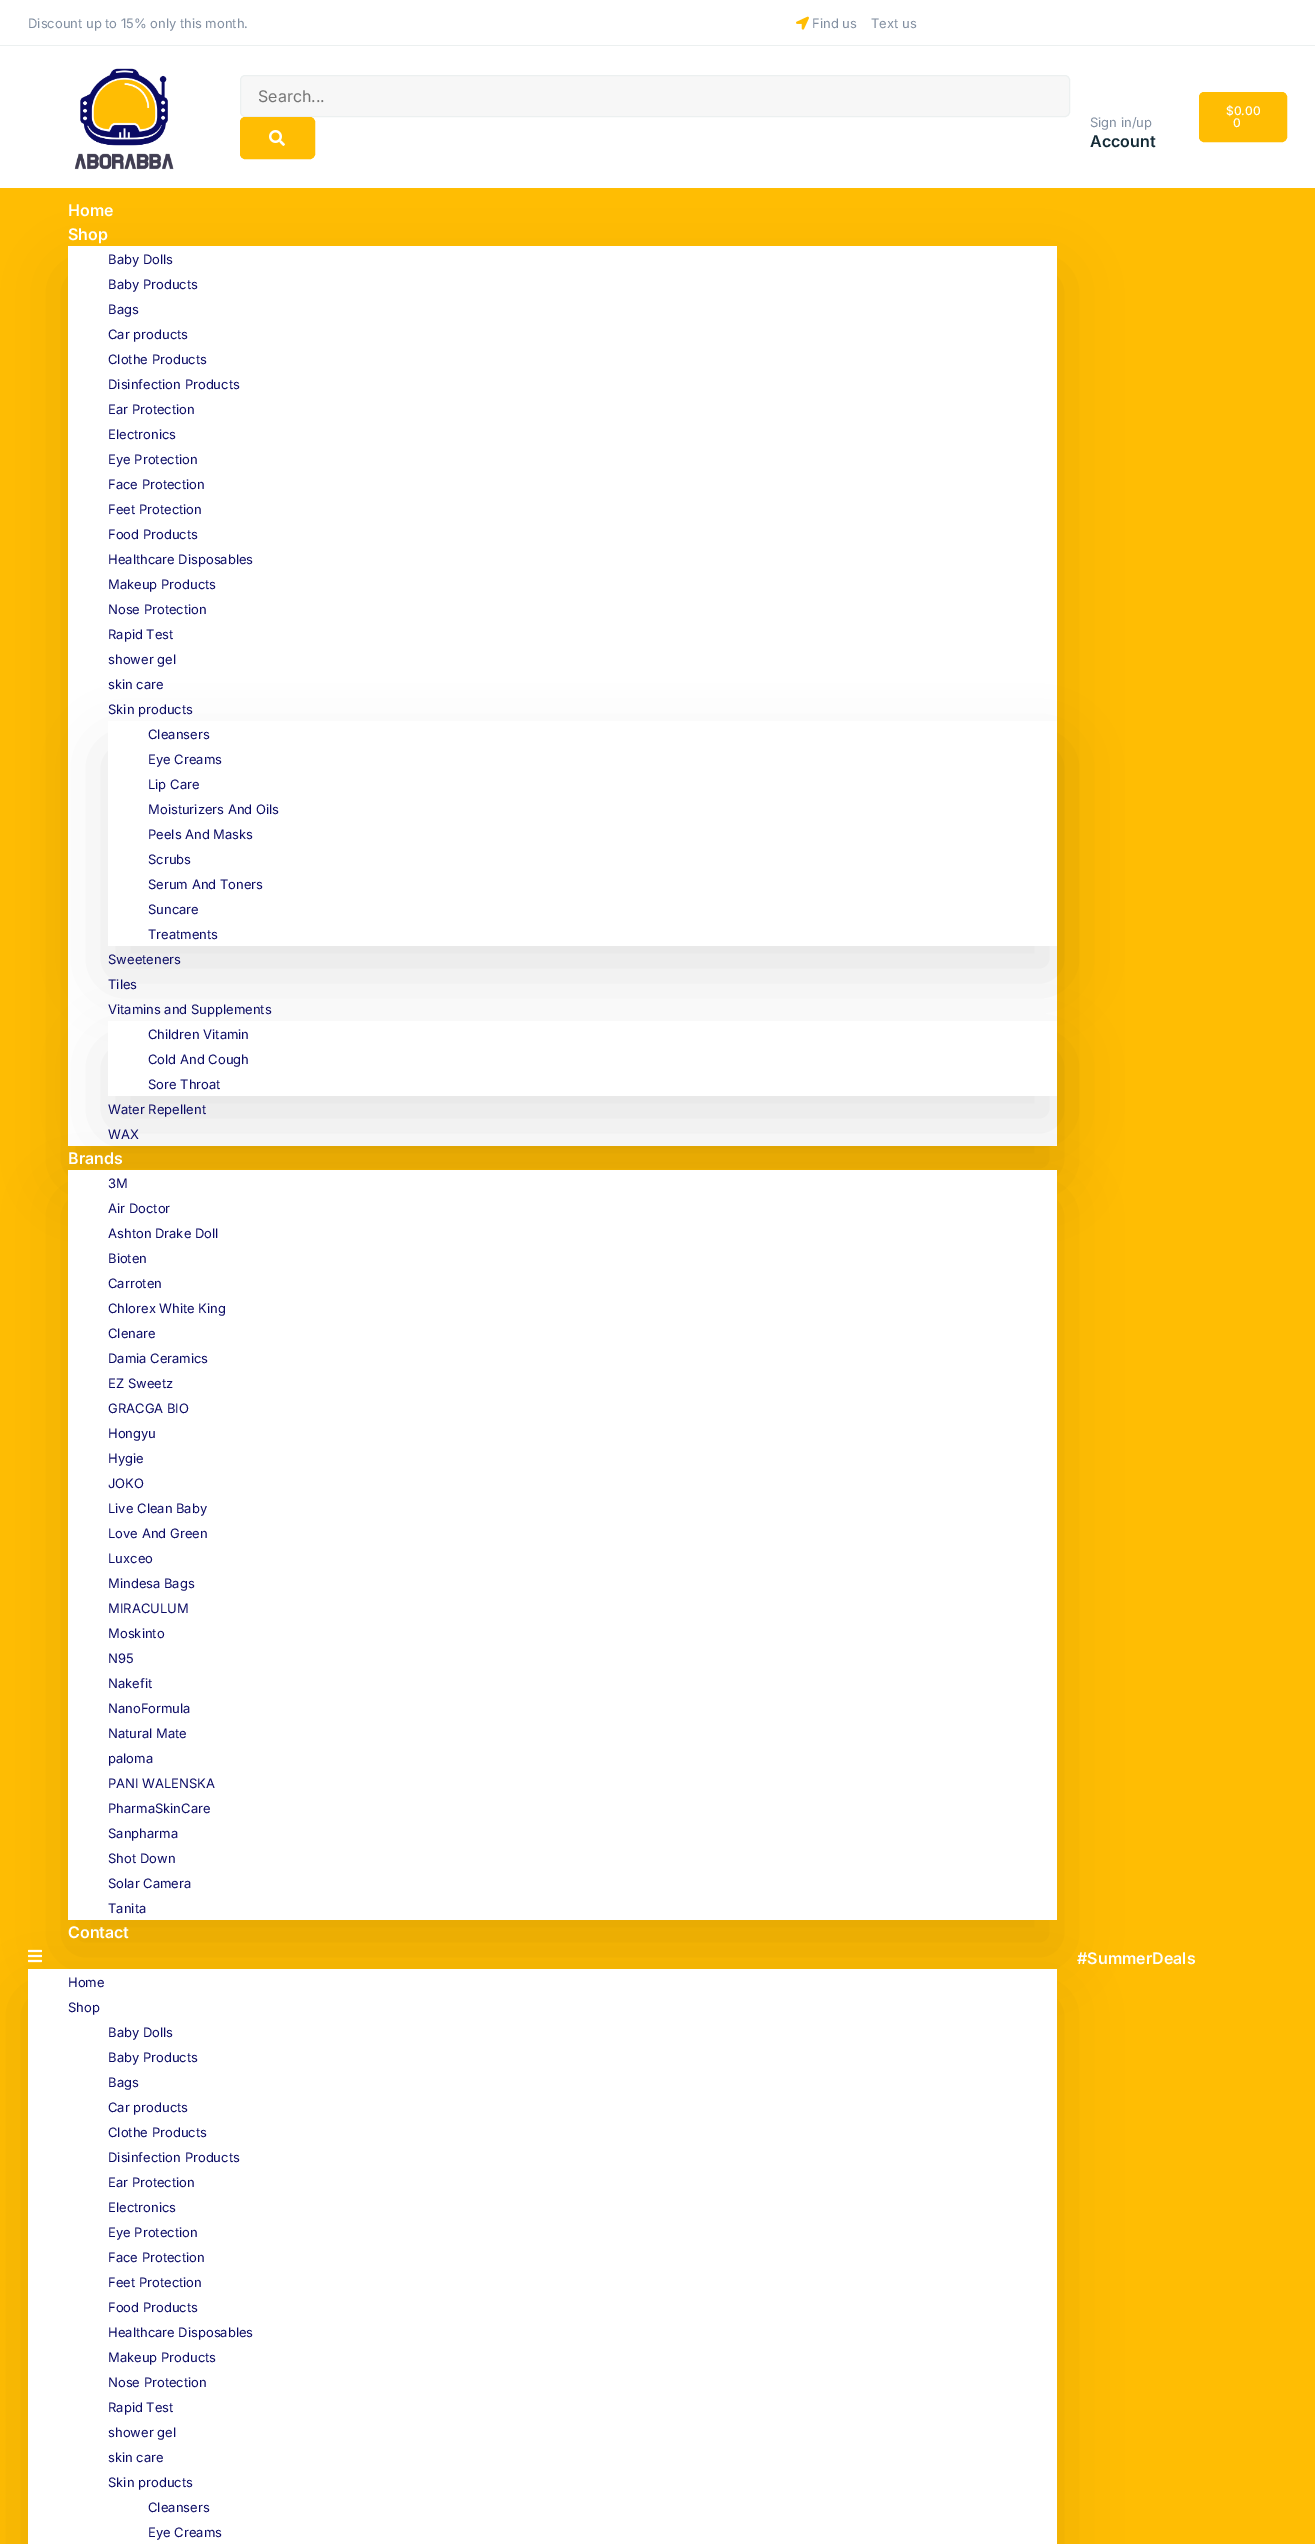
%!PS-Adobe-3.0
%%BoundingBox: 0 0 1315 2544
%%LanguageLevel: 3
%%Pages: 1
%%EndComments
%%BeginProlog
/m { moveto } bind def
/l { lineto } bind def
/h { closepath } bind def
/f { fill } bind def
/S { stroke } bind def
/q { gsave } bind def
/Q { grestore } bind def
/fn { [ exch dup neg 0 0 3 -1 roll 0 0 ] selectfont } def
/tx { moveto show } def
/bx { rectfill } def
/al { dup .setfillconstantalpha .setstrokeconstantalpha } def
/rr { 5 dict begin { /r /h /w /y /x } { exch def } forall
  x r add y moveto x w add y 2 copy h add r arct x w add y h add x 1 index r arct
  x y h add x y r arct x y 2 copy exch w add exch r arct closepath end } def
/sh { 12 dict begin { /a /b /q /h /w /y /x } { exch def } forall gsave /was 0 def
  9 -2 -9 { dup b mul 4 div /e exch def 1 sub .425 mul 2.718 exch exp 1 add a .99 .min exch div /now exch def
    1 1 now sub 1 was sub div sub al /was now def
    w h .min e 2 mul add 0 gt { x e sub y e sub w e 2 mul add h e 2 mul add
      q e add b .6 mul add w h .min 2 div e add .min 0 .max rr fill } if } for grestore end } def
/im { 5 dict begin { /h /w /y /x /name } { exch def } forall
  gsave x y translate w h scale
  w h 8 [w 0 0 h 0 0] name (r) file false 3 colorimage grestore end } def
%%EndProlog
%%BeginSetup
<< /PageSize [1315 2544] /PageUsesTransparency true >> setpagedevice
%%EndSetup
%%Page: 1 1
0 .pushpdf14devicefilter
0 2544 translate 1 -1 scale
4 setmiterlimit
1 setgray
0 0 1315 2544 bx
0.925 0.941 0.941 setrgbcolor
0 45 1315 1 bx
/Inter-Regular 13 fn
0.506 0.557 0.627 setrgbcolor
(Discount up to 15% only this month.) 28 28 tx
(image0.raw) 796 16 13 14 im
(Find us) 812 28 tx
(Text us) 871 28 tx
(image1.raw) 74 68 100 102 im
0.969 setgray
240.5 75.5 829 41 4.5 rr q f Q
0.925 0.941 0.941 setrgbcolor
S
/Inter-Regular 16 fn
0.459 setgray
(Search...) 258 102 tx
1 0.741 0.012 setrgbcolor
240.5 117.5 74 41 4.5 rr q f Q
S
(image2.raw) 269 130 16 16 im
/Inter-Regular 13 fn
0.506 0.557 0.627 setrgbcolor
(Sign in/up) 1090 127 tx
/Inter-SemiBold 16 fn
0.075 0.165 0.212 setrgbcolor
(Account) 1090 147 tx
1 0.741 0.012 setrgbcolor
1199.5 92.5 87 49 4.5 rr q f Q
S
/Inter-Medium 12 fn
1 setgray
($0.00) 1226 115 tx
(0) 1233 127 tx
1 0.741 0.012 setrgbcolor
0 188 1315 2356 bx
0 setgray
68 276 989 900 0 30 0.1 sh
/Inter-SemiBold 16 fn
1 setgray
(Home) 68 216 tx
(Shop) 68 240 tx
68 246 989 900 bx
/Inter-Regular 13 fn
0.043 0.043 0.392 setrgbcolor
(Baby Dolls) 108 264 tx
(Baby Products) 108 289 tx
(Bags) 108 314 tx
(Car products) 108 339 tx
(Clothe Products) 108 364 tx
(Disinfection Products) 108 389 tx
(Ear Protection) 108 414 tx
(Electronics) 108 439 tx
(Eye Protection) 108 464 tx
(Face Protection) 108 489 tx
(Feet Protection) 108 514 tx
(Food Products) 108 539 tx
(Healthcare Disposables) 108 564 tx
(Makeup Products) 108 589 tx
(Nose Protection) 108 614 tx
(Rapid Test) 108 639 tx
q
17 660 m 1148 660 l 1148 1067 l 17 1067 l h 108 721 m 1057 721 l 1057 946 l 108 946 l h eoclip newpath
0 setgray
108 751 949 225 0 30 0.1 sh
Q
(shower gel) 108 664 tx
(skin care) 108 689 tx
(Skin products) 108 714 tx
(Cleansers) 148 739 tx
(Eye Creams) 148 764 tx
(Lip Care) 148 789 tx
(Moisturizers And Oils) 148 814 tx
(Peels And Masks) 148 839 tx
(Scrubs) 148 864 tx
(Serum And Toners) 148 889 tx
(Suncare) 148 914 tx
(Treatments) 148 939 tx
0 setgray
108 1051 949 75 0 30 0.1 sh
0.043 0.043 0.392 setrgbcolor
(Sweeteners) 108 964 tx
(Tiles) 108 989 tx
(Vitamins and Supplements) 108 1014 tx
1 setgray
108 1021 949 75 bx
0.043 0.043 0.392 setrgbcolor
(Children Vitamin) 148 1039 tx
(Cold And Cough) 148 1064 tx
(Sore Throat) 148 1089 tx
0 setgray
68 1200 989 750 0 30 0.1 sh
0.043 0.043 0.392 setrgbcolor
(Water Repellent) 108 1114 tx
(WAX) 108 1139 tx
/Inter-SemiBold 16 fn
1 setgray
(Brands) 68 1164 tx
68 1170 989 750 bx
/Inter-Regular 13 fn
0.043 0.043 0.392 setrgbcolor
(3M) 108 1188 tx
(Air Doctor) 108 1213 tx
(Ashton Drake Doll) 108 1238 tx
(Bioten) 108 1263 tx
(Carroten) 108 1288 tx
(Chlorex White King) 108 1313 tx
(Clenare) 108 1338 tx
(Damia Ceramics) 108 1363 tx
(EZ Sweetz) 108 1388 tx
(GRACGA BIO) 108 1413 tx
(Hongyu) 108 1438 tx
(Hygie) 108 1463 tx
(JOKO) 108 1488 tx
(Live Clean Baby) 108 1513 tx
(Love And Green) 108 1538 tx
(Luxceo) 108 1563 tx
(Mindesa Bags) 108 1588 tx
(MIRACULUM) 108 1613 tx
(Moskinto) 108 1638 tx
(N95) 108 1663 tx
(Nakefit) 108 1688 tx
(NanoFormula) 108 1713 tx
(Natural Mate) 108 1738 tx
(paloma) 108 1763 tx
(PANI WALENSKA) 108 1788 tx
(PharmaSkinCare) 108 1813 tx
(Sanpharma) 108 1838 tx
(Shot Down) 108 1863 tx
(Solar Camera) 108 1888 tx
0 setgray
28 1999 1029 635 0 30 0.1 sh
0.043 0.043 0.392 setrgbcolor
(Tanita) 108 1913 tx
/Inter-SemiBold 16 fn
1 setgray
(Contact) 68 1938 tx
(image3.raw) 28 1949 14 14 im
28 1969 1029 575 bx
/Inter-Regular 13 fn
0.043 0.043 0.392 setrgbcolor
(Home) 68 1987 tx
(Shop) 68 2012 tx
(Baby Dolls) 108 2037 tx
(Baby Products) 108 2062 tx
(Bags) 108 2087 tx
(Car products) 108 2112 tx
(Clothe Products) 108 2137 tx
(Disinfection Products) 108 2162 tx
(Ear Protection) 108 2187 tx
(Electronics) 108 2212 tx
(Eye Protection) 108 2237 tx
(Face Protection) 108 2262 tx
(Feet Protection) 108 2287 tx
(Food Products) 108 2312 tx
(Healthcare Disposables) 108 2337 tx
(Makeup Products) 108 2362 tx
(Nose Protection) 108 2387 tx
(Rapid Test) 108 2412 tx
(shower gel) 108 2437 tx
(skin care) 108 2462 tx
(Skin products) 108 2487 tx
(Cleansers) 148 2512 tx
(Eye Creams) 148 2537 tx
/Inter-SemiBold 16 fn
1 setgray
(#SummerDeals) 1077 1964 tx
.poppdf14devicefilter showpage
%%EOF
